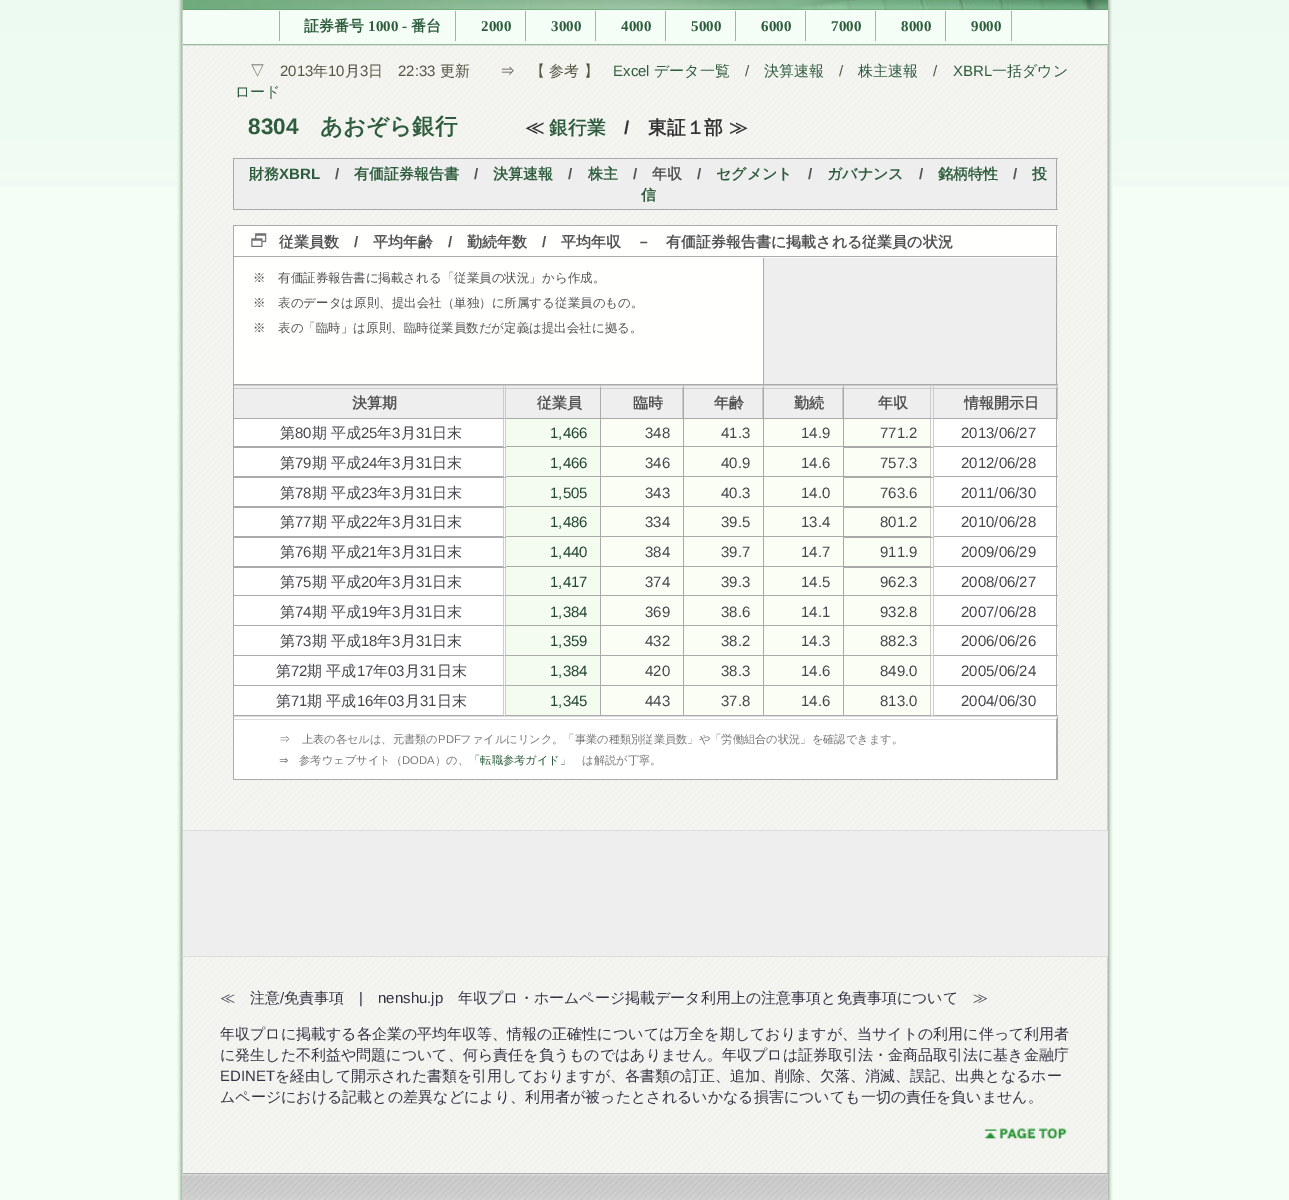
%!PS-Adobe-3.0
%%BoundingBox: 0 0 1289 1200
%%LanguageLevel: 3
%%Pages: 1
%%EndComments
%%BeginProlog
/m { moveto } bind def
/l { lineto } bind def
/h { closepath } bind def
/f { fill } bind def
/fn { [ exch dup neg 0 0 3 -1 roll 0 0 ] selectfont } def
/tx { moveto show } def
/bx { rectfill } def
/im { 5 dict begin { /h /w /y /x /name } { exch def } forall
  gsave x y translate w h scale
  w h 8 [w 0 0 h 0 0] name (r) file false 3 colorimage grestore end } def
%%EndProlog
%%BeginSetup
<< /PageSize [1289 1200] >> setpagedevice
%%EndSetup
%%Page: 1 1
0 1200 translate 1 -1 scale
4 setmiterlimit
0.957 0.996 0.965 setrgbcolor
0 0 1289 1200 bx
(image0.raw) 0 0 1289 186 im
0.988 0.98 0.984 setrgbcolor
1112 0 1 1200 bx
(image1.raw) 177 0 936 1200 im
0.322 0.604 0.388 setrgbcolor
183 0 925 10 bx
(image2.raw) 182 0 926 10 im
0.957 0.996 0.965 setrgbcolor
183 10 925 34 bx
0.58 0.737 0.6 setrgbcolor
183 44 925 1 bx
/WenQuanYiZenHei-Bold 15 fn
0.18 0.365 0.239 setrgbcolor
(証券番号) 304 31 tx
0.58 0.737 0.6 setrgbcolor
279 11 1 30 bx
/LiberationSerif-Bold 15 fn
0.18 0.365 0.239 setrgbcolor
(1000 -) 368 31 tx
/WenQuanYiZenHei-Bold 15 fn
(番台) 411 31 tx
0.58 0.737 0.6 setrgbcolor
455 11 1 30 bx
/LiberationSerif-Bold 15 fn
0.18 0.365 0.239 setrgbcolor
(2000) 481 31 tx
0.58 0.737 0.6 setrgbcolor
525 11 1 30 bx
0.18 0.365 0.239 setrgbcolor
(3000) 551 31 tx
0.58 0.737 0.6 setrgbcolor
595 11 1 30 bx
0.18 0.365 0.239 setrgbcolor
(4000) 621 31 tx
0.58 0.737 0.6 setrgbcolor
665 11 1 30 bx
0.18 0.365 0.239 setrgbcolor
(5000) 691 31 tx
0.58 0.737 0.6 setrgbcolor
735 11 1 30 bx
0.18 0.365 0.239 setrgbcolor
(6000) 761 31 tx
0.58 0.737 0.6 setrgbcolor
805 11 1 30 bx
0.18 0.365 0.239 setrgbcolor
(7000) 831 31 tx
0.58 0.737 0.6 setrgbcolor
875 11 1 30 bx
0.18 0.365 0.239 setrgbcolor
(8000) 901 31 tx
0.58 0.737 0.6 setrgbcolor
945 11 1 30 bx
0.18 0.365 0.239 setrgbcolor
(9000) 971 31 tx
0.58 0.737 0.6 setrgbcolor
1011 11 1 30 bx
0.867 setgray
183 45 925 1 bx
/WenQuanYiZenHei-Medium 15 fn
0.333 0.333 0.267 setrgbcolor
(▽) 250 76 tx
/LiberationSans-Regular 15 fn
(2013) 280 76 tx
/WenQuanYiZenHei-Medium 15 fn
(年) 313 76 tx
/LiberationSans-Regular 15 fn
(10) 328 76 tx
/WenQuanYiZenHei-Medium 15 fn
(月) 345 76 tx
/LiberationSans-Regular 15 fn
(3) 360 76 tx
/WenQuanYiZenHei-Medium 15 fn
(日) 368 76 tx
/LiberationSans-Regular 15 fn
(22:33) 398 76 tx
/WenQuanYiZenHei-Medium 15 fn
(更新　　⇒　【 参考 】) 440 76 tx
/LiberationSans-Regular 15 fn
0.18 0.365 0.239 setrgbcolor
(Excel) 613 76 tx
/WenQuanYiZenHei-Medium 15 fn
(データ一覧) 654 76 tx
/LiberationSans-Regular 15 fn
0.333 0.333 0.267 setrgbcolor
(/) 745 76 tx
/WenQuanYiZenHei-Medium 15 fn
0.18 0.365 0.239 setrgbcolor
(決算速報) 764 76 tx
/LiberationSans-Regular 15 fn
0.333 0.333 0.267 setrgbcolor
(/) 839 76 tx
/WenQuanYiZenHei-Medium 15 fn
0.18 0.365 0.239 setrgbcolor
(株主速報) 858 76 tx
/LiberationSans-Regular 15 fn
0.333 0.333 0.267 setrgbcolor
(/) 933 76 tx
0.18 0.365 0.239 setrgbcolor
(XBRL) 953 76 tx
/WenQuanYiZenHei-Medium 15 fn
(一括ダウン) 992 76 tx
(ロード) 235 97 tx
/LiberationSans-Bold 22.5 fn
(8304) 248 134 tx
/WenQuanYiZenHei-Bold 22.5 fn
(あおぞら銀行) 320 134 tx
/WenQuanYiZenHei-Bold 18.75 fn
0.2 setgray
(≪) 525 134 tx
0.18 0.365 0.239 setrgbcolor
(銀行業) 549 134 tx
/LiberationSans-Bold 18.75 fn
0.2 setgray
(/) 624 134 tx
/WenQuanYiZenHei-Bold 18.75 fn
(東証１部 ≫) 648 134 tx
0.667 setgray
233 158 825 1 bx
233 158 1 52 bx
0.933 setgray
234 159 824 50 bx
0.667 setgray
1056 159 1 51 bx
234 209 824 1 bx
/WenQuanYiZenHei-Bold 15 fn
0.18 0.365 0.239 setrgbcolor
(財務) 249 179 tx
/LiberationSans-Bold 15 fn
(XBRL) 279 179 tx
0.325 setgray
(/) 335 179 tx
/WenQuanYiZenHei-Bold 15 fn
0.18 0.365 0.239 setrgbcolor
(有価証券報告書) 354 179 tx
/LiberationSans-Bold 15 fn
0.325 setgray
(/) 474 179 tx
/WenQuanYiZenHei-Bold 15 fn
0.18 0.365 0.239 setrgbcolor
(決算速報) 493 179 tx
/LiberationSans-Bold 15 fn
0.325 setgray
(/) 568 179 tx
/WenQuanYiZenHei-Bold 15 fn
0.18 0.365 0.239 setrgbcolor
(株主) 588 179 tx
/LiberationSans-Bold 15 fn
0.325 setgray
(/) 633 179 tx
/WenQuanYiZenHei-Bold 15 fn
(年収) 652 179 tx
/LiberationSans-Bold 15 fn
(/) 697 179 tx
/WenQuanYiZenHei-Bold 15 fn
0.18 0.365 0.239 setrgbcolor
(セグメント) 716 179 tx
/LiberationSans-Bold 15 fn
0.325 setgray
(/) 808 179 tx
/WenQuanYiZenHei-Bold 15 fn
0.18 0.365 0.239 setrgbcolor
(ガバナンス) 827 179 tx
/LiberationSans-Bold 15 fn
0.325 setgray
(/) 919 179 tx
/WenQuanYiZenHei-Bold 15 fn
0.18 0.365 0.239 setrgbcolor
(銘柄特性) 938 179 tx
/LiberationSans-Bold 15 fn
0.325 setgray
(/) 1013 179 tx
/WenQuanYiZenHei-Bold 15 fn
0.18 0.365 0.239 setrgbcolor
(投) 1032 179 tx
(信) 641 200 tx
1 setgray
234 419 824 360 bx
0.667 setgray
233 225 825 1 bx
233 225 1 555 bx
1 1 0.992 setrgbcolor
234 226 824 32 bx
(image3.raw) 251 233 16 14 im
0.667 setgray
1056 226 1 32 bx
234 256 824 1 bx
0.325 setgray
(従業員数) 279 247 tx
/LiberationSans-Bold 15 fn
(/) 354 247 tx
/WenQuanYiZenHei-Bold 15 fn
(平均年齢) 373 247 tx
/LiberationSans-Bold 15 fn
(/) 448 247 tx
/WenQuanYiZenHei-Bold 15 fn
(勤続年数) 467 247 tx
/LiberationSans-Bold 15 fn
(/) 542 247 tx
/WenQuanYiZenHei-Bold 15 fn
(平均年収　－　有価証券報告書に掲載される従業員の状況) 561 247 tx
1 1 0.992 setrgbcolor
234 258 529 126 bx
0.667 setgray
763 258 1 127 bx
234 384 530 1 bx
/WenQuanYiZenHei-Medium 12.5 fn
0.325 setgray
(※　有価証券報告書に掲載される「従業員の状況」から作成。) 253 282 tx
(※　表のデータは原則、提出会社（単独）に所属する従業員のもの。) 253 307 tx
(※　表の「臨時」は原則、臨時従業員数だが定義は提出会社に拠る。) 253 332 tx
0.933 setgray
764 258 294 126 bx
0.667 setgray
1056 258 1 127 bx
764 384 294 1 bx
0.933 setgray
234 386 271 33 bx
0.8 setgray
234 385 824 1 bx
234 388 272 1 bx
503 385 1 331 bx
505 385 1 331 bx
0.667 setgray
506 419 m 234 419 l 234 418 l 502 418 l h f
/WenQuanYiZenHei-Bold 15 fn
0.325 setgray
(決算期) 352 408 tx
0.933 setgray
506 386 338 32 bx
0.8 setgray
506 388 338 1 bx
0.667 setgray
601 385 m 601 419 l 600 417.5 l 600 389 l h f
506 418 95 1 bx
0.325 setgray
(従業員) 537 408 tx
0.667 setgray
684 385 m 684 419 l 682.5 417.5 l 682.5 389 l h f
601 418 83 1 bx
0.325 setgray
(臨時) 633 408 tx
0.667 setgray
764 385 m 764 419 l 762.5 417.5 l 762.5 389 l h f
684 418 80 1 bx
0.325 setgray
(年齢) 714 408 tx
0.667 setgray
844 385 m 844 419 l 842.5 417.5 l 842.5 389 l h f
764 418 80 1 bx
0.325 setgray
(勤続) 794 408 tx
0.933 setgray
844 386 89 33 bx
0.8 setgray
844 388 90 1 bx
930 385 1 34 bx
933 385 1 331 bx
0.667 setgray
934 419 m 844 419 l 844 418 l 930 418 l h f
0.325 setgray
(年収) 878 408 tx
0.933 setgray
934 386 124 32 bx
0.8 setgray
934 388 124 1 bx
0.667 setgray
1057.5 385 m 1057.5 419 l 1056 417.5 l 1056 389 l h f
934 418 124 1 bx
0.325 setgray
(情報開示日) 964 408 tx
0.667 setgray
506 448 m 234 448 l 234 446 l 502 446 l h f
/WenQuanYiZenHei-Medium 15 fn
0.275 0.275 0.298 setrgbcolor
(第) 280 438 tx
/LiberationSans-Regular 15 fn
(80) 295 438 tx
/WenQuanYiZenHei-Medium 15 fn
(期 平成) 312 438 tx
/LiberationSans-Regular 15 fn
(25) 361 438 tx
/WenQuanYiZenHei-Medium 15 fn
(年) 377 438 tx
/LiberationSans-Regular 15 fn
(3) 392 438 tx
/WenQuanYiZenHei-Medium 15 fn
(月) 401 438 tx
/LiberationSans-Regular 15 fn
(31) 416 438 tx
/WenQuanYiZenHei-Medium 15 fn
(日末) 432 438 tx
0.957 0.988 0.937 setrgbcolor
506 419 94 176 bx
0.667 setgray
600 419 1 297 bx
506 446 95 1 bx
/LiberationSans-Regular 15 fn
0.129 0.271 0.176 setrgbcolor
(1,466) 550 438 tx
0.98 0.996 0.961 setrgbcolor
601 419 82 176 bx
0.667 setgray
683 419 1 297 bx
601 446 83 1 bx
0.275 0.275 0.298 setrgbcolor
(348) 645 438 tx
0.98 0.996 0.961 setrgbcolor
684 419 79 176 bx
0.667 setgray
763 419 1 297 bx
684 446 80 1 bx
0.275 0.275 0.298 setrgbcolor
(41.3) 721 438 tx
0.98 0.996 0.961 setrgbcolor
764 419 79 176 bx
0.667 setgray
843 419 1 297 bx
764 446 80 1 bx
0.275 0.275 0.298 setrgbcolor
(14.9) 801 438 tx
0.98 0.996 0.961 setrgbcolor
844 419 89 297 bx
0.8 setgray
930 419 1 297 bx
0.667 setgray
934 448 m 844 448 l 844 446 l 930 446 l h f
0.275 0.275 0.298 setrgbcolor
(771.2) 880 438 tx
0.667 setgray
1056 419 1 297 bx
934 446 124 1 bx
0.275 0.275 0.298 setrgbcolor
(2013/06/27) 961 438 tx
0.667 setgray
506 478 m 234 478 l 234 476 l 502 476 l h f
/WenQuanYiZenHei-Medium 15 fn
0.275 0.275 0.298 setrgbcolor
(第) 280 468 tx
/LiberationSans-Regular 15 fn
(79) 295 468 tx
/WenQuanYiZenHei-Medium 15 fn
(期 平成) 312 468 tx
/LiberationSans-Regular 15 fn
(24) 361 468 tx
/WenQuanYiZenHei-Medium 15 fn
(年) 377 468 tx
/LiberationSans-Regular 15 fn
(3) 392 468 tx
/WenQuanYiZenHei-Medium 15 fn
(月) 401 468 tx
/LiberationSans-Regular 15 fn
(31) 416 468 tx
/WenQuanYiZenHei-Medium 15 fn
(日末) 432 468 tx
0.667 setgray
506 476 338 1 bx
/LiberationSans-Regular 15 fn
0.129 0.271 0.176 setrgbcolor
(1,466) 550 468 tx
0.275 0.275 0.298 setrgbcolor
(346) 645 468 tx
(40.9) 721 468 tx
(14.6) 801 468 tx
0.667 setgray
934 478 m 844 478 l 844 476 l 930 476 l h f
0.275 0.275 0.298 setrgbcolor
(757.3) 880 468 tx
0.667 setgray
934 476 124 1 bx
0.275 0.275 0.298 setrgbcolor
(2012/06/28) 961 468 tx
0.667 setgray
506 508 m 234 508 l 234 506 l 502 506 l h f
/WenQuanYiZenHei-Medium 15 fn
0.275 0.275 0.298 setrgbcolor
(第) 280 498 tx
/LiberationSans-Regular 15 fn
(78) 295 498 tx
/WenQuanYiZenHei-Medium 15 fn
(期 平成) 312 498 tx
/LiberationSans-Regular 15 fn
(23) 361 498 tx
/WenQuanYiZenHei-Medium 15 fn
(年) 377 498 tx
/LiberationSans-Regular 15 fn
(3) 392 498 tx
/WenQuanYiZenHei-Medium 15 fn
(月) 401 498 tx
/LiberationSans-Regular 15 fn
(31) 416 498 tx
/WenQuanYiZenHei-Medium 15 fn
(日末) 432 498 tx
0.667 setgray
506 506 338 1 bx
/LiberationSans-Regular 15 fn
0.129 0.271 0.176 setrgbcolor
(1,505) 550 498 tx
0.275 0.275 0.298 setrgbcolor
(343) 645 498 tx
(40.3) 721 498 tx
(14.0) 801 498 tx
0.667 setgray
934 508 m 844 508 l 844 506 l 930 506 l h f
0.275 0.275 0.298 setrgbcolor
(763.6) 880 498 tx
0.667 setgray
934 506 124 1 bx
0.275 0.275 0.298 setrgbcolor
(2011/06/30) 961 498 tx
0.667 setgray
506 538 m 234 538 l 234 536 l 502 536 l h f
/WenQuanYiZenHei-Medium 15 fn
0.275 0.275 0.298 setrgbcolor
(第) 280 527 tx
/LiberationSans-Regular 15 fn
(77) 295 527 tx
/WenQuanYiZenHei-Medium 15 fn
(期 平成) 312 527 tx
/LiberationSans-Regular 15 fn
(22) 361 527 tx
/WenQuanYiZenHei-Medium 15 fn
(年) 377 527 tx
/LiberationSans-Regular 15 fn
(3) 392 527 tx
/WenQuanYiZenHei-Medium 15 fn
(月) 401 527 tx
/LiberationSans-Regular 15 fn
(31) 416 527 tx
/WenQuanYiZenHei-Medium 15 fn
(日末) 432 527 tx
0.667 setgray
506 536 338 1 bx
/LiberationSans-Regular 15 fn
0.129 0.271 0.176 setrgbcolor
(1,486) 550 527 tx
0.275 0.275 0.298 setrgbcolor
(334) 645 527 tx
(39.5) 721 527 tx
(13.4) 801 527 tx
0.667 setgray
934 538 m 844 538 l 844 536 l 930 536 l h f
0.275 0.275 0.298 setrgbcolor
(801.2) 880 527 tx
0.667 setgray
934 536 124 1 bx
0.275 0.275 0.298 setrgbcolor
(2010/06/28) 961 527 tx
0.667 setgray
506 568 m 234 568 l 234 566 l 502 566 l h f
/WenQuanYiZenHei-Medium 15 fn
0.275 0.275 0.298 setrgbcolor
(第) 280 557 tx
/LiberationSans-Regular 15 fn
(76) 295 557 tx
/WenQuanYiZenHei-Medium 15 fn
(期 平成) 312 557 tx
/LiberationSans-Regular 15 fn
(21) 361 557 tx
/WenQuanYiZenHei-Medium 15 fn
(年) 377 557 tx
/LiberationSans-Regular 15 fn
(3) 392 557 tx
/WenQuanYiZenHei-Medium 15 fn
(月) 401 557 tx
/LiberationSans-Regular 15 fn
(31) 416 557 tx
/WenQuanYiZenHei-Medium 15 fn
(日末) 432 557 tx
0.667 setgray
506 566 338 1 bx
/LiberationSans-Regular 15 fn
0.129 0.271 0.176 setrgbcolor
(1,440) 550 557 tx
0.275 0.275 0.298 setrgbcolor
(384) 645 557 tx
(39.7) 721 557 tx
(14.7) 801 557 tx
0.667 setgray
934 568 m 844 568 l 844 566 l 930 566 l h f
0.275 0.275 0.298 setrgbcolor
(911.9) 880 557 tx
0.667 setgray
934 566 124 1 bx
0.275 0.275 0.298 setrgbcolor
(2009/06/29) 961 557 tx
0.667 setgray
506 596 m 234 596 l 234 595 l 502 595 l h f
/WenQuanYiZenHei-Medium 15 fn
0.275 0.275 0.298 setrgbcolor
(第) 280 587 tx
/LiberationSans-Regular 15 fn
(75) 295 587 tx
/WenQuanYiZenHei-Medium 15 fn
(期 平成) 312 587 tx
/LiberationSans-Regular 15 fn
(20) 361 587 tx
/WenQuanYiZenHei-Medium 15 fn
(年) 377 587 tx
/LiberationSans-Regular 15 fn
(3) 392 587 tx
/WenQuanYiZenHei-Medium 15 fn
(月) 401 587 tx
/LiberationSans-Regular 15 fn
(31) 416 587 tx
/WenQuanYiZenHei-Medium 15 fn
(日末) 432 587 tx
0.667 setgray
506 595 338 1 bx
/LiberationSans-Regular 15 fn
0.129 0.271 0.176 setrgbcolor
(1,417) 550 587 tx
0.275 0.275 0.298 setrgbcolor
(374) 645 587 tx
(39.3) 721 587 tx
(14.5) 801 587 tx
0.667 setgray
934 596 m 844 596 l 844 595 l 930 595 l h f
0.275 0.275 0.298 setrgbcolor
(962.3) 880 587 tx
0.667 setgray
934 595 124 1 bx
0.275 0.275 0.298 setrgbcolor
(2008/06/27) 961 587 tx
0.667 setgray
506 626 m 234 626 l 234 625 l 502 625 l h f
/WenQuanYiZenHei-Medium 15 fn
0.275 0.275 0.298 setrgbcolor
(第) 280 617 tx
/LiberationSans-Regular 15 fn
(74) 295 617 tx
/WenQuanYiZenHei-Medium 15 fn
(期 平成) 312 617 tx
/LiberationSans-Regular 15 fn
(19) 361 617 tx
/WenQuanYiZenHei-Medium 15 fn
(年) 377 617 tx
/LiberationSans-Regular 15 fn
(3) 392 617 tx
/WenQuanYiZenHei-Medium 15 fn
(月) 401 617 tx
/LiberationSans-Regular 15 fn
(31) 416 617 tx
/WenQuanYiZenHei-Medium 15 fn
(日末) 432 617 tx
0.957 0.988 0.937 setrgbcolor
506 596 94 29 bx
0.667 setgray
506 625 338 1 bx
/LiberationSans-Regular 15 fn
0.129 0.271 0.176 setrgbcolor
(1,384) 550 617 tx
0.98 0.996 0.961 setrgbcolor
601 596 82 29 bx
0.275 0.275 0.298 setrgbcolor
(369) 645 617 tx
0.98 0.996 0.961 setrgbcolor
684 596 79 29 bx
0.275 0.275 0.298 setrgbcolor
(38.6) 721 617 tx
0.98 0.996 0.961 setrgbcolor
764 596 79 29 bx
0.275 0.275 0.298 setrgbcolor
(14.1) 801 617 tx
0.667 setgray
934 626 m 844 626 l 844 625 l 930 625 l h f
0.275 0.275 0.298 setrgbcolor
(932.8) 880 617 tx
0.667 setgray
934 625 124 1 bx
0.275 0.275 0.298 setrgbcolor
(2007/06/28) 961 617 tx
0.667 setgray
506 656 m 234 656 l 234 655 l 502 655 l h f
/WenQuanYiZenHei-Medium 15 fn
0.275 0.275 0.298 setrgbcolor
(第) 280 646 tx
/LiberationSans-Regular 15 fn
(73) 295 646 tx
/WenQuanYiZenHei-Medium 15 fn
(期 平成) 312 646 tx
/LiberationSans-Regular 15 fn
(18) 361 646 tx
/WenQuanYiZenHei-Medium 15 fn
(年) 377 646 tx
/LiberationSans-Regular 15 fn
(3) 392 646 tx
/WenQuanYiZenHei-Medium 15 fn
(月) 401 646 tx
/LiberationSans-Regular 15 fn
(31) 416 646 tx
/WenQuanYiZenHei-Medium 15 fn
(日末) 432 646 tx
0.957 0.988 0.937 setrgbcolor
506 626 94 29 bx
0.667 setgray
506 655 338 1 bx
/LiberationSans-Regular 15 fn
0.129 0.271 0.176 setrgbcolor
(1,359) 550 646 tx
0.98 0.996 0.961 setrgbcolor
601 626 82 29 bx
0.275 0.275 0.298 setrgbcolor
(432) 645 646 tx
0.98 0.996 0.961 setrgbcolor
684 626 79 29 bx
0.275 0.275 0.298 setrgbcolor
(38.2) 721 646 tx
0.98 0.996 0.961 setrgbcolor
764 626 79 29 bx
0.275 0.275 0.298 setrgbcolor
(14.3) 801 646 tx
0.667 setgray
934 656 m 844 656 l 844 655 l 930 655 l h f
0.275 0.275 0.298 setrgbcolor
(882.3) 880 646 tx
0.667 setgray
934 655 124 1 bx
0.275 0.275 0.298 setrgbcolor
(2006/06/26) 961 646 tx
0.667 setgray
506 686 m 234 686 l 234 685 l 502 685 l h f
/WenQuanYiZenHei-Medium 15 fn
0.275 0.275 0.298 setrgbcolor
(第) 276 676 tx
/LiberationSans-Regular 15 fn
(72) 291 676 tx
/WenQuanYiZenHei-Medium 15 fn
(期 平成) 307 676 tx
/LiberationSans-Regular 15 fn
(17) 357 676 tx
/WenQuanYiZenHei-Medium 15 fn
(年) 373 676 tx
/LiberationSans-Regular 15 fn
(03) 388 676 tx
/WenQuanYiZenHei-Medium 15 fn
(月) 405 676 tx
/LiberationSans-Regular 15 fn
(31) 420 676 tx
/WenQuanYiZenHei-Medium 15 fn
(日末) 437 676 tx
0.957 0.988 0.937 setrgbcolor
506 656 94 29 bx
0.667 setgray
506 685 338 1 bx
/LiberationSans-Regular 15 fn
0.129 0.271 0.176 setrgbcolor
(1,384) 550 676 tx
0.98 0.996 0.961 setrgbcolor
601 656 82 29 bx
0.275 0.275 0.298 setrgbcolor
(420) 645 676 tx
0.98 0.996 0.961 setrgbcolor
684 656 79 29 bx
0.275 0.275 0.298 setrgbcolor
(38.3) 721 676 tx
0.98 0.996 0.961 setrgbcolor
764 656 79 29 bx
0.275 0.275 0.298 setrgbcolor
(14.6) 801 676 tx
0.667 setgray
934 686 m 844 686 l 844 685 l 930 685 l h f
0.275 0.275 0.298 setrgbcolor
(849.0) 880 676 tx
0.667 setgray
934 685 124 1 bx
0.275 0.275 0.298 setrgbcolor
(2005/06/24) 961 676 tx
0.667 setgray
506 716 m 234 716 l 234 715 l 502 715 l h f
/WenQuanYiZenHei-Medium 15 fn
0.275 0.275 0.298 setrgbcolor
(第) 276 706 tx
/LiberationSans-Regular 15 fn
(71) 291 706 tx
/WenQuanYiZenHei-Medium 15 fn
(期 平成) 307 706 tx
/LiberationSans-Regular 15 fn
(16) 357 706 tx
/WenQuanYiZenHei-Medium 15 fn
(年) 373 706 tx
/LiberationSans-Regular 15 fn
(03) 388 706 tx
/WenQuanYiZenHei-Medium 15 fn
(月) 405 706 tx
/LiberationSans-Regular 15 fn
(31) 420 706 tx
/WenQuanYiZenHei-Medium 15 fn
(日末) 437 706 tx
0.957 0.988 0.937 setrgbcolor
506 686 94 29 bx
0.667 setgray
506 715 338 1 bx
/LiberationSans-Regular 15 fn
0.129 0.271 0.176 setrgbcolor
(1,345) 550 706 tx
0.98 0.996 0.961 setrgbcolor
601 686 82 29 bx
0.275 0.275 0.298 setrgbcolor
(443) 645 706 tx
0.98 0.996 0.961 setrgbcolor
684 686 79 29 bx
0.275 0.275 0.298 setrgbcolor
(37.8) 721 706 tx
0.98 0.996 0.961 setrgbcolor
764 686 79 29 bx
0.275 0.275 0.298 setrgbcolor
(14.6) 801 706 tx
0.667 setgray
934 716 m 844 716 l 844 715 l 930 715 l h f
0.275 0.275 0.298 setrgbcolor
(813.0) 880 706 tx
0.667 setgray
934 715 124 1 bx
0.275 0.275 0.298 setrgbcolor
(2004/06/30) 961 706 tx
0.867 setgray
234 716 824 1 bx
234 719 824 1 bx
0.667 setgray
1058 716 m 1058 780 l 1056 779 l 1056 720 l h f
234 779 824 1 bx
/WenQuanYiZenHei-Medium 11.25 fn
0.467 setgray
(⇒　上表の各セルは、元書類の) 279 743 tx
/LiberationSans-Regular 11.25 fn
(PDF) 438 743 tx
/WenQuanYiZenHei-Medium 11.25 fn
(ファイルにリンク。「事業の種類別従業員数」や「労働組合の状況」を確認できます。) 460 743 tx
/DejaVuSans-Regular 11.25 fn
(⇒) 279 764 tx
/WenQuanYiZenHei-Medium 11.25 fn
(参考ウェブサイト（) 299 764 tx
/LiberationSans-Regular 11.25 fn
(DODA) 402 764 tx
/WenQuanYiZenHei-Medium 11.25 fn
(）の、) 435 764 tx
0.18 0.365 0.239 setrgbcolor
(「転職参考ガイド」) 469 764 tx
0.467 setgray
(は解説が丁寧。) 582 764 tx
0.933 setgray
183 831 925 125 bx
0.867 setgray
183 830 925 1 bx
183 956 925 1 bx
/WenQuanYiZenHei-Medium 15 fn
0.2 0.2 0.267 setrgbcolor
(≪　注意) 220 1003 tx
/LiberationSans-Regular 15 fn
(/) 280 1003 tx
/WenQuanYiZenHei-Medium 15 fn
(免責事項) 284 1003 tx
/LiberationSans-Regular 15 fn
(|) 359 1003 tx
(nenshu.jp) 378 1003 tx
/WenQuanYiZenHei-Medium 15 fn
(年収プロ・ホームページ掲載データ利用上の注意事項と免責事項について　≫) 458 1003 tx
(年収プロに掲載する各企業の平均年収等、情報の正確性については万全を期しておりますが、当サイトの利用に伴って利用者) 220 1039 tx
(に発生した不利益や問題について、何ら責任を負うものではありません。年収プロは証券取引法・金商品取引法に基き金融庁) 220 1060 tx
/LiberationSans-Regular 15 fn
(EDINET) 220 1081 tx
/WenQuanYiZenHei-Medium 15 fn
(を経由して開示された書類を引用しておりますが、各書類の訂正、追加、削除、欠落、消滅、誤記、出典となるホー) 275 1081 tx
(ムページにおける記載との差異などにより、利用者が被ったとされるいかなる損害についても一切の責任を負いません。) 220 1102 tx
(image4.raw) 984 1128 83 11 im
(image5.raw) 182 1173 926 27 im
0.69 setgray
183 1173 925 1 bx
showpage
%%EOF
